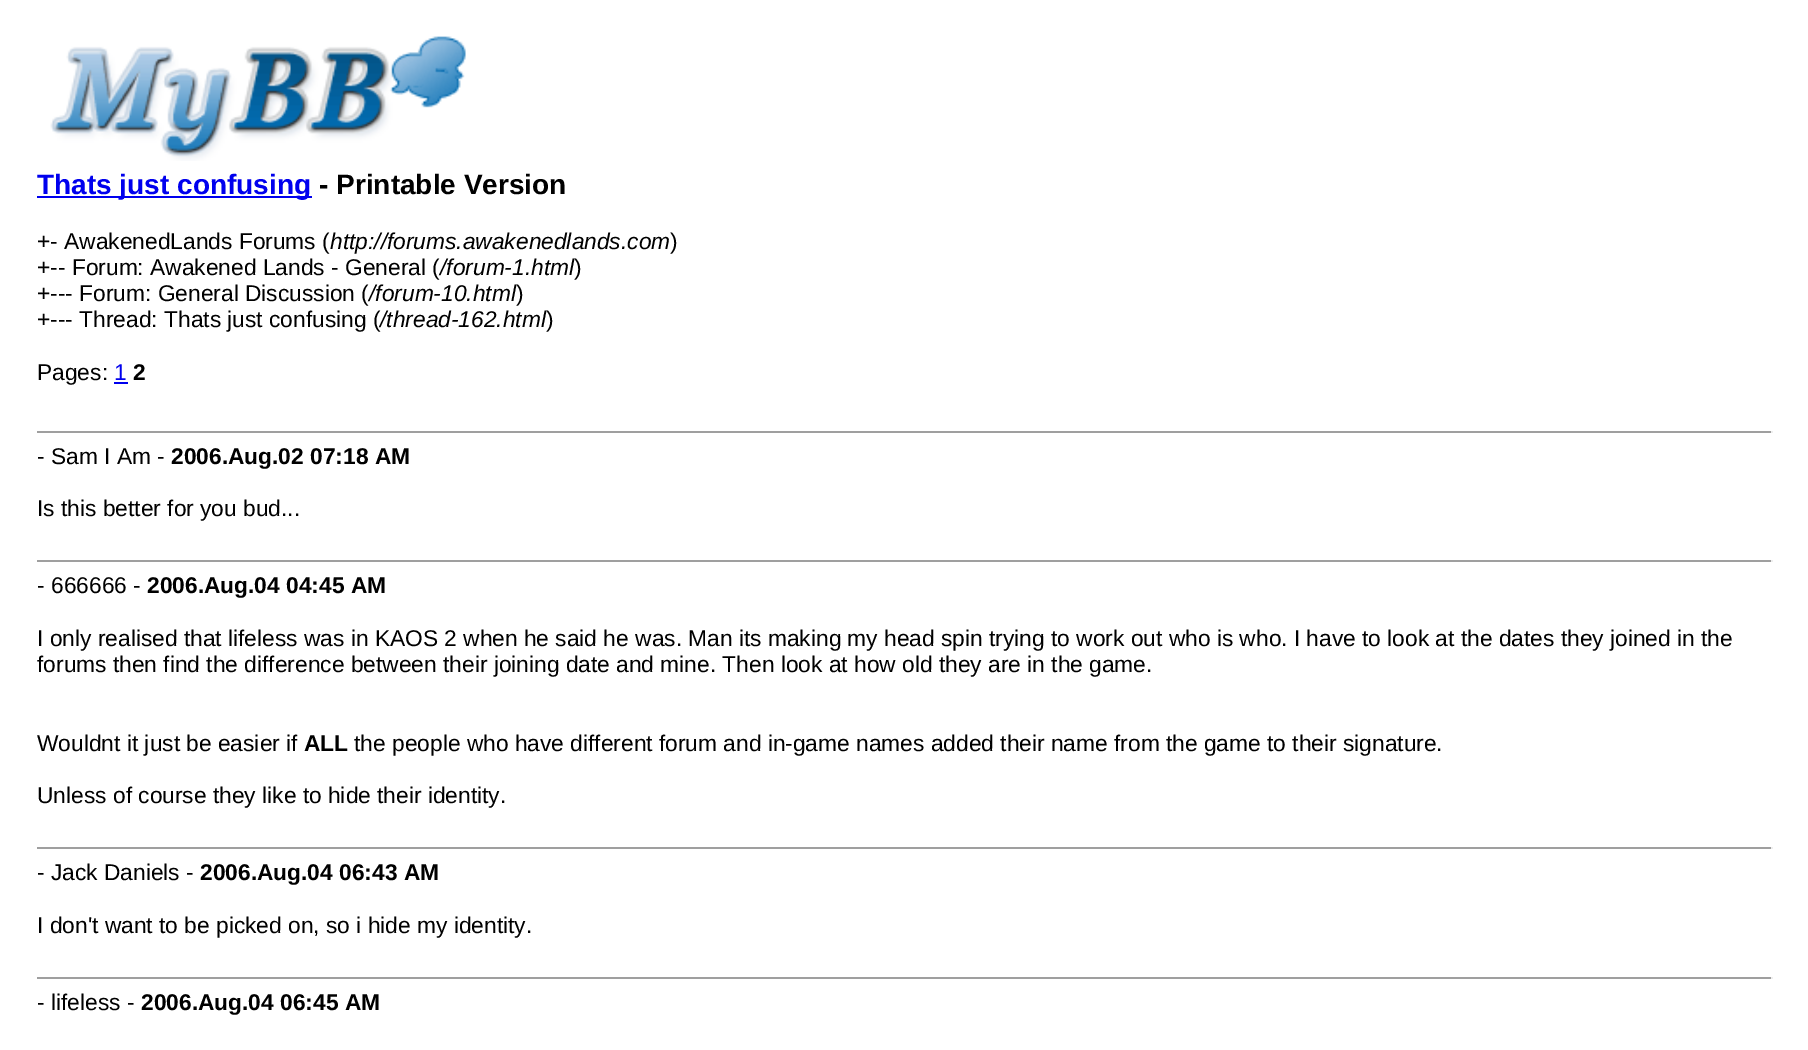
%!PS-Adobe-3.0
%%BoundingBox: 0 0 1808 1050
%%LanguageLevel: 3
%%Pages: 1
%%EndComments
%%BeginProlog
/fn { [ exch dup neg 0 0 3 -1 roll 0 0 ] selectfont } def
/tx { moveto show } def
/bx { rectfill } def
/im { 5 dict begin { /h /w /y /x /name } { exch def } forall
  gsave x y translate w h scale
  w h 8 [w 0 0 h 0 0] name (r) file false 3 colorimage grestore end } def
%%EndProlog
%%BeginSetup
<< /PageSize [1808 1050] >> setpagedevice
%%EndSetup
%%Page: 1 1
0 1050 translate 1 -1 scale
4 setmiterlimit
1 setgray
0 0 1808 1050 bx
(image0.raw) 50 36 416 125 im
0 0 0.933 setrgbcolor
37 196 275 2 bx
/LiberationSans-Bold 28 fn
(Thats just confusing) 37 194 tx
0 setgray
(- Printable Version) 319 194 tx
/LiberationSans-Regular 22.75 fn
(+- AwakenedLands Forums \() 37 249 tx
/LiberationSans-Italic 22.75 fn
(http://forums.awakenedlands.com) 330 249 tx
/LiberationSans-Regular 22.75 fn
(\)) 670 249 tx
(+-- Forum: Awakened Lands - General \() 37 275 tx
/LiberationSans-Italic 22.75 fn
(/forum-1.html) 440 275 tx
/LiberationSans-Regular 22.75 fn
(\)) 574 275 tx
(+--- Forum: General Discussion \() 37 301 tx
/LiberationSans-Italic 22.75 fn
(/forum-10.html) 369 301 tx
/LiberationSans-Regular 22.75 fn
(\)) 516 301 tx
(+--- Thread: Thats just confusing \() 37 327 tx
/LiberationSans-Italic 22.75 fn
(/thread-162.html) 380 327 tx
/LiberationSans-Regular 22.75 fn
(\)) 546 327 tx
(Pages:) 37 380 tx
0 0 0.933 setrgbcolor
(1) 114 380 tx
114 382 14 2 bx
/LiberationSans-Bold 22.75 fn
0 setgray
(2) 133 380 tx
0.624 setgray
37 431 1736 2 bx
0.933 setgray
1771 431 2 2 bx
/LiberationSans-Regular 22.75 fn
0 setgray
(- Sam I Am -) 37 464 tx
/LiberationSans-Bold 22.75 fn
(2006.Aug.02 07:18 AM) 171 464 tx
/LiberationSans-Regular 22.75 fn
(Is this better for you bud...) 37 516 tx
0.624 setgray
37 560 1736 2 bx
0.933 setgray
1771 560 2 2 bx
0 setgray
(- 666666 -) 37 593 tx
/LiberationSans-Bold 22.75 fn
(2006.Aug.04 04:45 AM) 147 593 tx
/LiberationSans-Regular 22.75 fn
(I only realised that lifeless was in KAOS 2 when he said he was. Man its making my head spin trying to work out who is who. I have to look at the dates they joined in the) 37 646 tx
(forums then find the difference between their joining date and mine. Then look at how old they are in the game.) 37 672 tx
(Wouldnt it just be easier if) 37 751 tx
/LiberationSans-Bold 22.75 fn
(ALL) 304 751 tx
/LiberationSans-Regular 22.75 fn
(the people who have different forum and in-game names added their name from the game to their signature.) 354 751 tx
(Unless of course they like to hide their identity.) 37 803 tx
0.624 setgray
37 847 1736 2 bx
0.933 setgray
1771 847 2 2 bx
0 setgray
(- Jack Daniels -) 37 880 tx
/LiberationSans-Bold 22.75 fn
(2006.Aug.04 06:43 AM) 200 880 tx
/LiberationSans-Regular 22.75 fn
(I don't want to be picked on, so i hide my identity.) 37 933 tx
0.624 setgray
37 977 1736 2 bx
0.933 setgray
1771 977 2 2 bx
0 setgray
(- lifeless -) 37 1010 tx
/LiberationSans-Bold 22.75 fn
(2006.Aug.04 06:45 AM) 141 1010 tx
showpage
%%EOF
